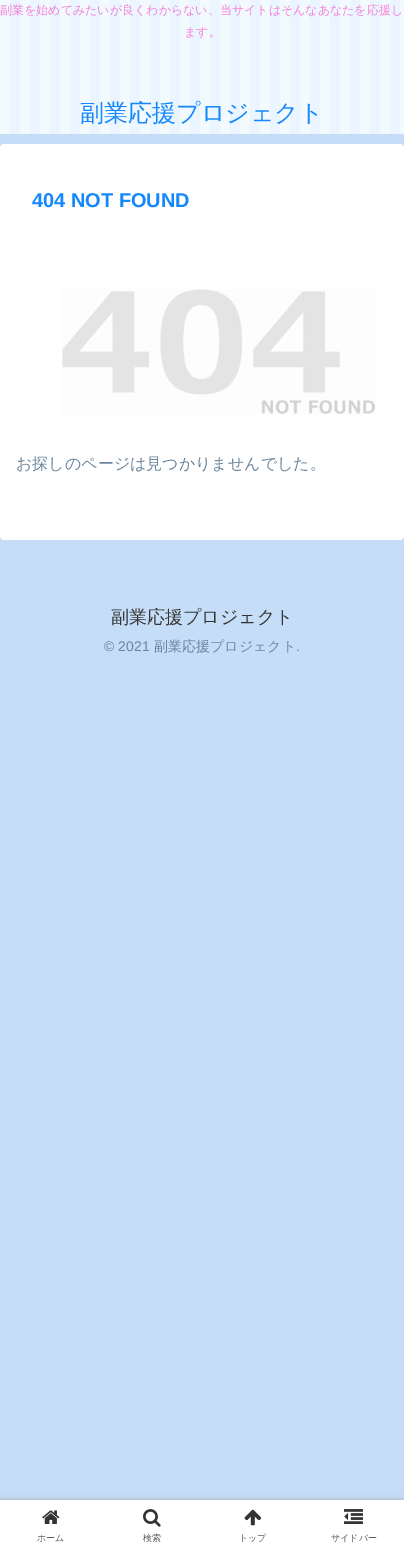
%!PS-Adobe-3.0
%%BoundingBox: 0 0 404 1550
%%LanguageLevel: 3
%%Pages: 1
%%EndComments
%%BeginProlog
/f { fill } bind def
/fn { [ exch dup neg 0 0 3 -1 roll 0 0 ] selectfont } def
/tx { moveto show } def
/bx { rectfill } def
/al { dup .setfillconstantalpha .setstrokeconstantalpha } def
/rr { 5 dict begin { /r /h /w /y /x } { exch def } forall
  x r add y moveto x w add y 2 copy h add r arct x w add y h add x 1 index r arct
  x y h add x y r arct x y 2 copy exch w add exch r arct closepath end } def
/sh { 12 dict begin { /a /b /q /h /w /y /x } { exch def } forall gsave /was 0 def
  9 -2 -9 { dup b mul 4 div /e exch def 1 sub .425 mul 2.718 exch exp 1 add a .99 .min exch div /now exch def
    1 1 now sub 1 was sub div sub al /was now def
    w h .min e 2 mul add 0 gt { x e sub y e sub w e 2 mul add h e 2 mul add
      q e add b .6 mul add w h .min 2 div e add .min 0 .max rr fill } if } for grestore end } def
/im { 5 dict begin { /h /w /y /x /name } { exch def } forall
  gsave x y translate w h scale
  w h 8 [w 0 0 h 0 0] name (r) file false 3 colorimage grestore end } def
%%EndProlog
%%BeginSetup
<< /PageSize [404 1550] /PageUsesTransparency true >> setpagedevice
%%EndSetup
%%Page: 1 1
0 .pushpdf14devicefilter
0 1550 translate 1 -1 scale
4 setmiterlimit
0.773 0.867 0.969 setrgbcolor
0 0 404 1550 bx
(image0.raw) 0 0 404 134 im
/WenQuanYiZenHei-Medium 12 fn
0.957 0.498 0.843 setrgbcolor
(副業を始めてみたいが良くわからない、当サイトはそんなあなたを応援し) 0 14 tx
(ます。) 184 36 tx
/WenQuanYiZenHei-Medium 24 fn
0.082 0.533 0.984 setrgbcolor
(副業応援プロジェクト) 80 121 tx
1 setgray
0 144 404 396 4 rr f
/LiberationSans-Bold 20 fn
0.082 0.533 0.984 setrgbcolor
(404 NOT FOUND) 32 207 tx
(image1.raw) 62 289 314 126 im
/WenQuanYiZenHei-Medium 16 fn
0.416 0.522 0.612 setrgbcolor
(お探しのページは見つかりませんでした。) 16 469 tx
/WenQuanYiZenHei-Medium 18 fn
0.2 setgray
(副業応援プロジェクト) 111 623 tx
/LiberationSans-Regular 14 fn
0.416 0.522 0.612 setrgbcolor
(© 2021) 104 651 tx
/WenQuanYiZenHei-Medium 14 fn
(副業応援プロジェクト) 154 651 tx
/LiberationSans-Regular 14 fn
(.) 296 651 tx
0.663 setgray
0 1500 404 50 0 2.5 1 sh
1 setgray
0 1500 404 50 bx
(image2.raw) 42 1510 18 14 im
/WenQuanYiZenHei-Medium 9 fn
0.361 setgray
(ホーム) 37 1541 tx
(image3.raw) 143 1509 18 18 im
(検索) 143 1541 tx
(image4.raw) 244 1509 17 17 im
(トップ) 239 1541 tx
(image5.raw) 344 1509 19 15 im
(サイドバー) 331 1541 tx
.poppdf14devicefilter showpage
%%EOF
